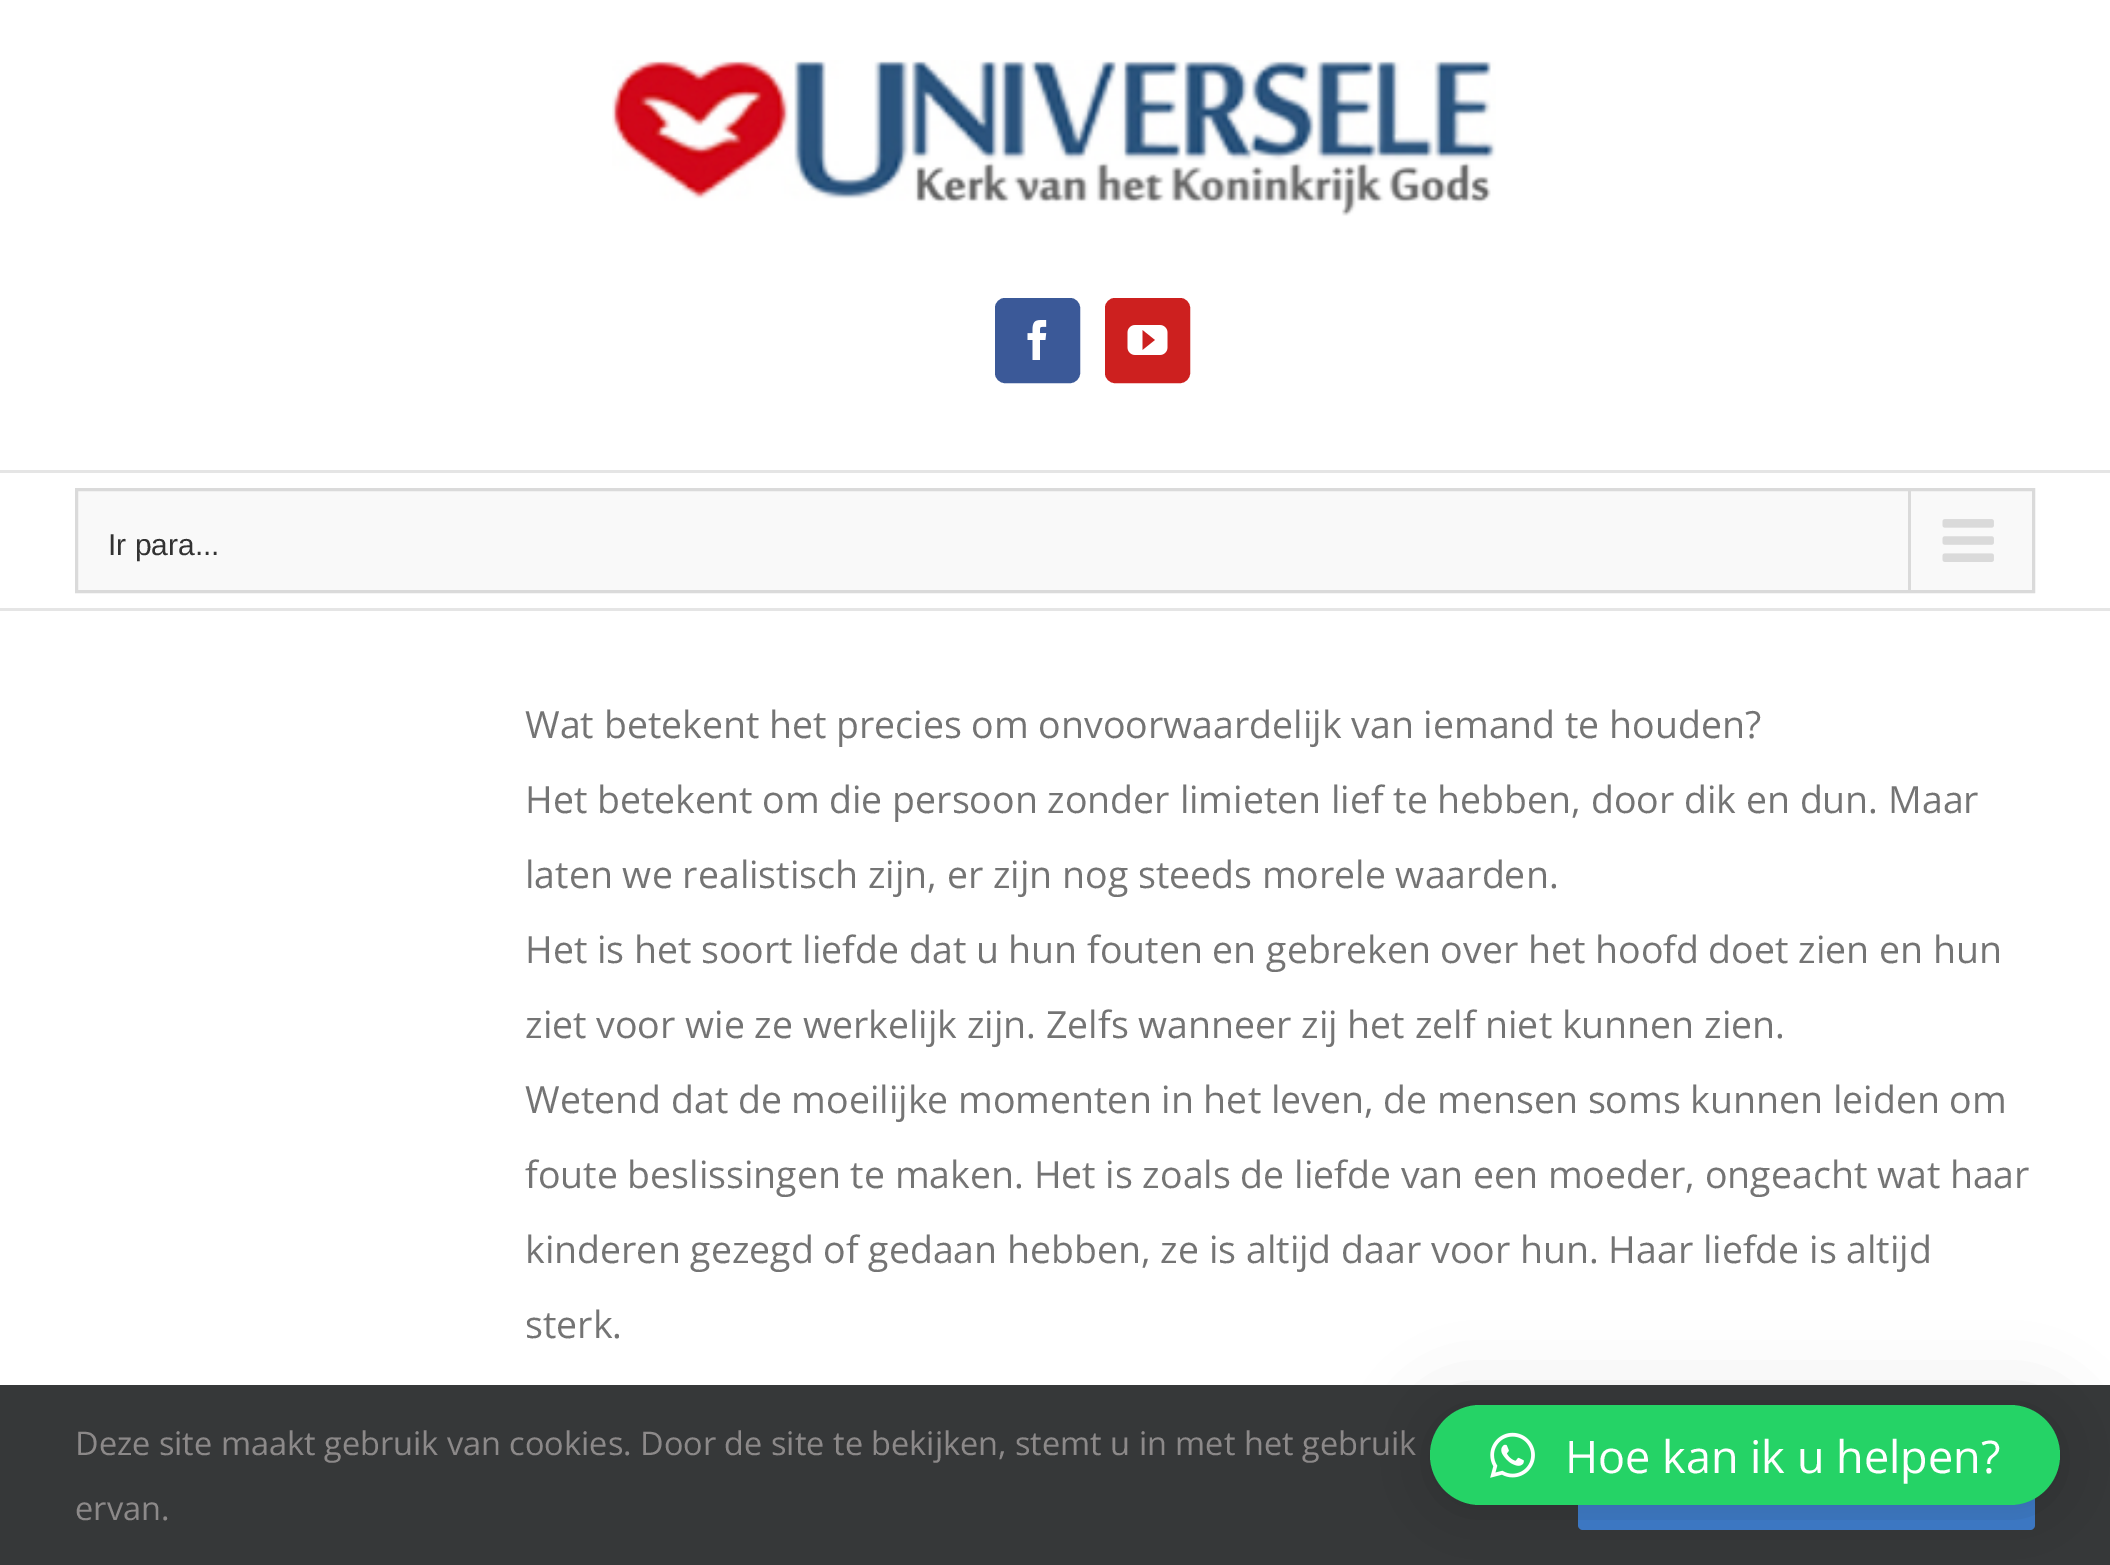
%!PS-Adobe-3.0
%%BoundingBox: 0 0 2110 1565
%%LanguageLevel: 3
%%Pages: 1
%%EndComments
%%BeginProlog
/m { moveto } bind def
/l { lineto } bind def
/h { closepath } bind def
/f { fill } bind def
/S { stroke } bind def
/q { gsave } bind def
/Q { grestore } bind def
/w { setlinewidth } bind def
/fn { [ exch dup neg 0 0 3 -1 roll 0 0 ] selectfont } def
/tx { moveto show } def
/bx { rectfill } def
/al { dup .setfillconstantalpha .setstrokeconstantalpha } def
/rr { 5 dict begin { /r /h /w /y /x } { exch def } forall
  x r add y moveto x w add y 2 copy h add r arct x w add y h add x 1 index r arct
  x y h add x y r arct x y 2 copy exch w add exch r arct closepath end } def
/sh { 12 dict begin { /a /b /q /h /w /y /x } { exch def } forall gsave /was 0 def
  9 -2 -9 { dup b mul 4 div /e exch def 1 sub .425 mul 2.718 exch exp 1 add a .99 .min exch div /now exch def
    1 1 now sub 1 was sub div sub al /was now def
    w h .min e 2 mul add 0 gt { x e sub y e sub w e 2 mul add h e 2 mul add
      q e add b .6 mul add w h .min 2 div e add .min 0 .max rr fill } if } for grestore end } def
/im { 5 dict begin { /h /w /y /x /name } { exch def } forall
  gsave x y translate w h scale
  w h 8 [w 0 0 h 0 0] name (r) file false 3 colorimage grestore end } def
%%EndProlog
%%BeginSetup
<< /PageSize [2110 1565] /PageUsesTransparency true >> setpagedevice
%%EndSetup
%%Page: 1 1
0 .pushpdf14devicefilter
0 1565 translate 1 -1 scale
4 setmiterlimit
1 setgray
0 0 2110 1565 bx
0.898 setgray
0 470 2110 3 bx
(image0.raw) 612 60 884 156 im
0.231 0.349 0.596 setrgbcolor
996.5 299.5 82 82 8.5 rr q f Q
3 w
S
(image1.raw) 1027 320 20 40 im
0.804 0.125 0.122 setrgbcolor
1106.5 299.5 82 82 8.5 rr q f Q
S
(image2.raw) 1127 325 41 30 im
0.898 setgray
0 608 2110 3 bx
0.976 setgray
76.5 489.5 m 2033.5 489.5 l 2033.5 591.5 l 76.5 591.5 l h q f Q
0.855 setgray
S
/LiberationSans-Regular 30 fn
0.2 setgray
(Ir para...) 108 555 tx
0.855 setgray
1908 490 3 100 bx
(image3.raw) 1942 519 52 43 im
/OpenSans-Regular 37.5 fn
0.455 setgray
(Wat betekent het precies om onvoorwaardelijk van iemand te houden?) 525 738 tx
(Het betekent om die persoon zonder limieten lief te hebben, door dik en dun. Maar) 525 813 tx
(laten we realistisch zijn, er zijn nog steeds morele waarden.) 525 888 tx
(Het is het soort liefde dat u hun fouten en gebreken over het hoofd doet zien en hun) 525 963 tx
(ziet voor wie ze werkelijk zijn. Zelfs wanneer zij het zelf niet kunnen zien.) 525 1038 tx
(Wetend dat de moeilijke momenten in het leven, de mensen soms kunnen leiden om) 525 1113 tx
(foute beslissingen te maken. Het is zoals de liefde van een moeder, ongeacht wat haar) 525 1188 tx
(kinderen gezegd of gedaan hebben, ze is altijd daar voor hun. Haar liefde is altijd) 525 1263 tx
(sterk.) 525 1338 tx
0.212 0.22 0.224 setrgbcolor
0 1385 2110 180 bx
/OpenSans-Regular 32.5 fn
0.549 0.537 0.537 setrgbcolor
(Deze site maakt gebruik van cookies. Door de site te bekijken, stemt u in met het gebruik) 75 1455 tx
(ervan.) 75 1520 tx
0.243 0.486 0.8 setrgbcolor
1578 1423 457 107 5 rr f
0 setgray
1430 1410 630 100 50 40 0.16 sh
1430 1408 630 100 50 7.5 0.06 sh
0.145 0.827 0.4 setrgbcolor
1430 1405 630 100 50 rr f
(image4.raw) 1490 1432 45 46 im
/OpenSans-Regular 45 fn
1 setgray
(Hoe kan ik u helpen?) 1565 1473 tx
.poppdf14devicefilter showpage
%%EOF
